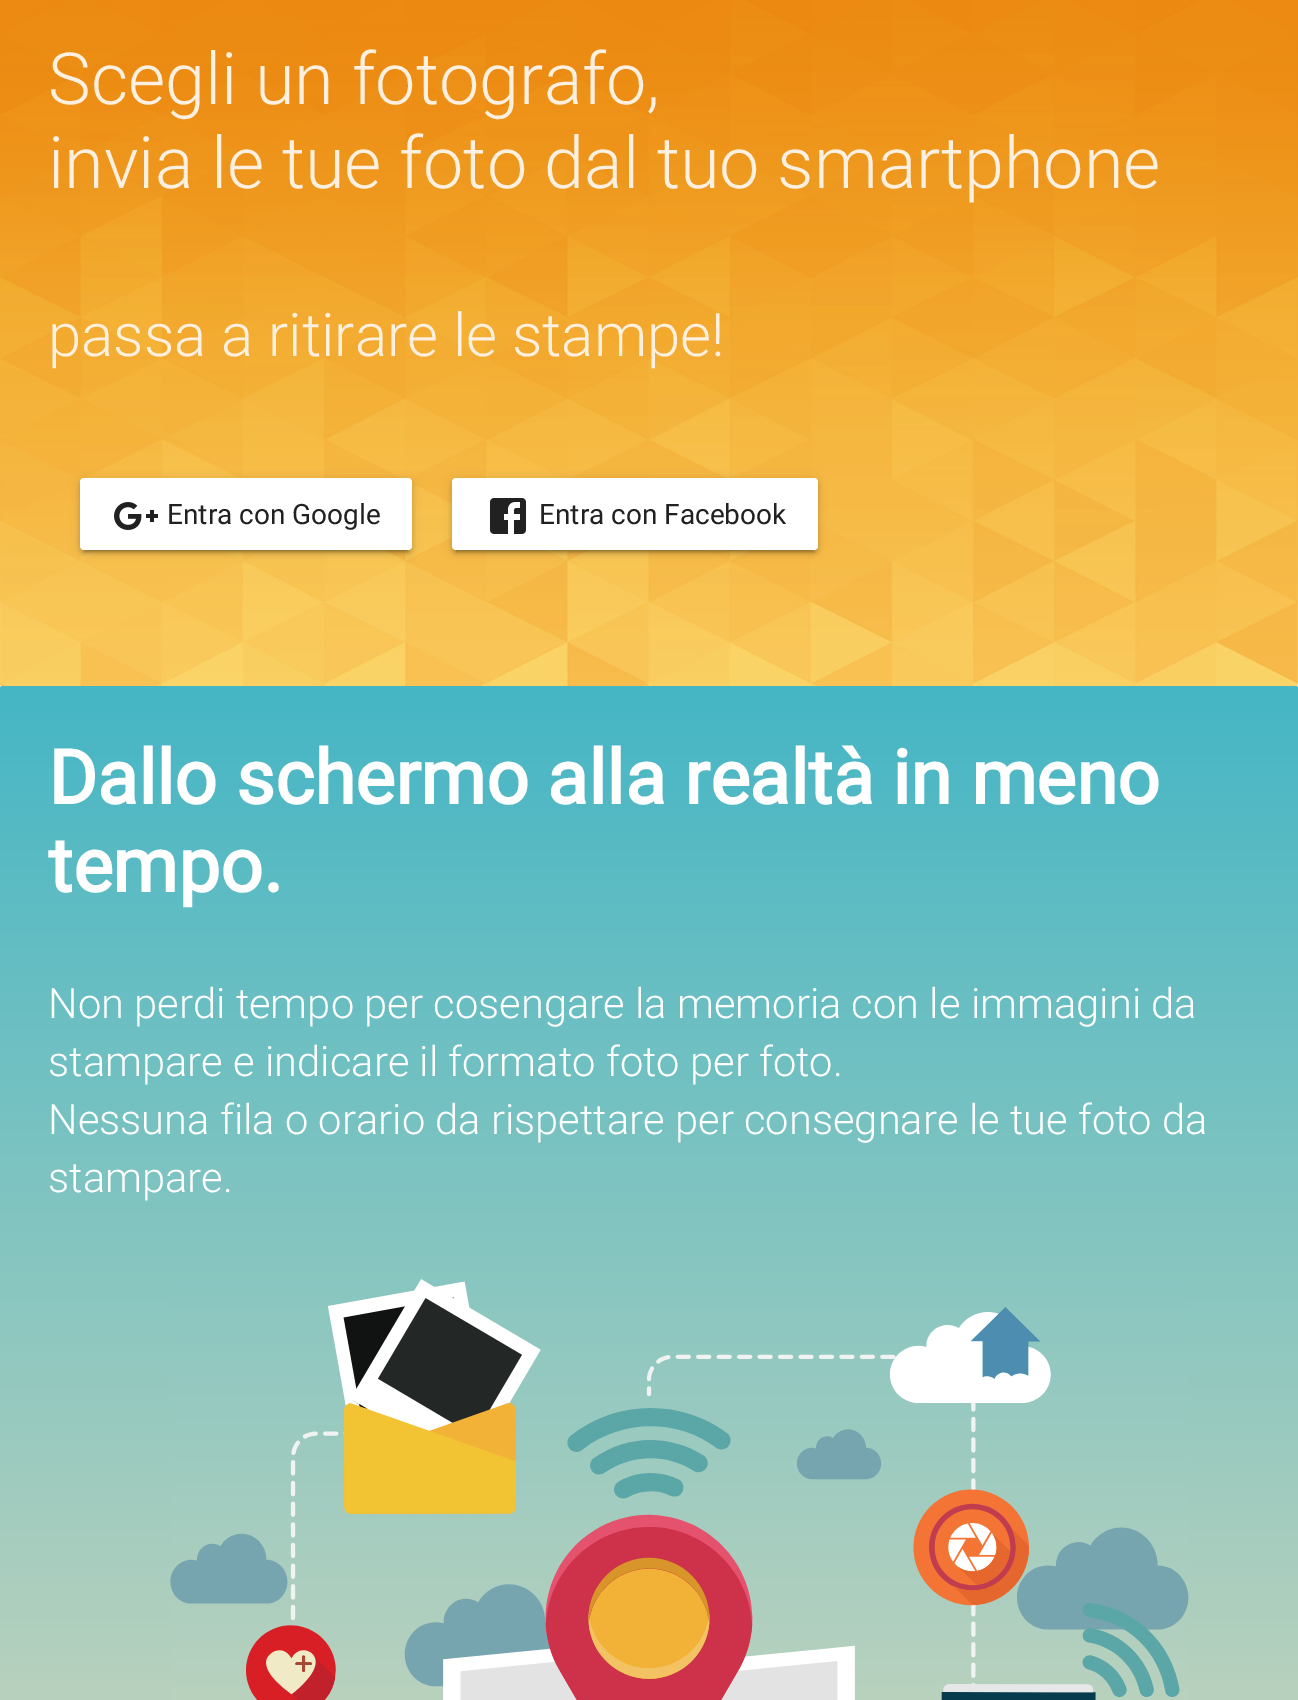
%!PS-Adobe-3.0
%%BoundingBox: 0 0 1298 1700
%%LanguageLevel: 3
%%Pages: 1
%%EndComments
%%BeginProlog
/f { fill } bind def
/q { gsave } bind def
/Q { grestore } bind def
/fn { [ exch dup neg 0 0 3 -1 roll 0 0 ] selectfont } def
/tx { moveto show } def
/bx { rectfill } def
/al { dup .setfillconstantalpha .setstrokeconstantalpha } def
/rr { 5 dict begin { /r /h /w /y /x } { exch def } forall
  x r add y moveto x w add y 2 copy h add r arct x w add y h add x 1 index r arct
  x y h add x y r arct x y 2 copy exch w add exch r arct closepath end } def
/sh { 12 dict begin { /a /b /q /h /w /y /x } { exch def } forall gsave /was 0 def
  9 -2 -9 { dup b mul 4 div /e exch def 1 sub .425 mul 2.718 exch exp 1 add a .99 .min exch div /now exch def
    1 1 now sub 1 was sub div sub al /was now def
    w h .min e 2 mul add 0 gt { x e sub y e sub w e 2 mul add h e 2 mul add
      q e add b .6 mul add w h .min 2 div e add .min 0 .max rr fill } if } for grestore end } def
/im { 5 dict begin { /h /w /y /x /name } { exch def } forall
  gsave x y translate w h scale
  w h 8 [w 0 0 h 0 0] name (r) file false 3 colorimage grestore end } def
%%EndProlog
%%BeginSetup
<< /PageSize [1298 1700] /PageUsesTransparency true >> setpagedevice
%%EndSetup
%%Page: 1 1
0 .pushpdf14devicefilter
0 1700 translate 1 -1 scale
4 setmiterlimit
0.925 0.867 0.729 setrgbcolor
0 0 1298 1700 bx
(image0.raw) 0 0 1298 686 im
/Roboto-Light 72 fn
0.992 0.941 0.878 setrgbcolor
(Scegli un fotografo,) 48 104 tx
(invia le tue foto dal tuo smartphone) 48 188 tx
/Roboto-Light 60 fn
(passa a ritirare le stampe!) 48 356 tx
0 setgray
80 480 332 72 4 5 0.12 sh
80 482 332 72 4 2 0.14 sh
84 488 324 64 0 1 0.2 sh
1 setgray
80 478 332 72 4 rr f
(image1.raw) 114 502 44 28 im
/Roboto-Regular 28 fn
0.129 setgray
(Entra con Google) 167 524 tx
0 setgray
452 480 366 72 4 5 0.12 sh
452 482 366 72 4 2 0.14 sh
456 488 358 64 0 1 0.2 sh
1 setgray
452 478 366 72 4 rr f
(image2.raw) 490 498 36 36 im
0.129 setgray
(Entra con Facebook) 539 524 tx
q 0 686 1298 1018 4 rr clip newpath
<< /ShadingType 2 /ColorSpace /DeviceRGB /Coords [649 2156 649 686] /Extend [true true] /Function << /FunctionType 2 /Domain [0 1] /C0 [0.925 0.867 0.729] /C1 [0.271 0.714 0.773] /N 1 >> >> shfill Q
/Roboto-Bold 75 fn
1 setgray
(Dallo schermo alla realtà in meno) 48 804 tx
(tempo.) 48 892 tx
/Roboto-Light 41.7 fn
(Non perdi tempo per cosengare la memoria con le immagini da) 48 1018 tx
(stampare e indicare il formato foto per foto.) 48 1076 tx
(Nessuna fila o orario da rispettare per consegnare le tue foto da) 48 1134 tx
(stampare.) 48 1192 tx
(image3.raw) 170 1279 1019 421 im
.poppdf14devicefilter showpage
%%EOF
